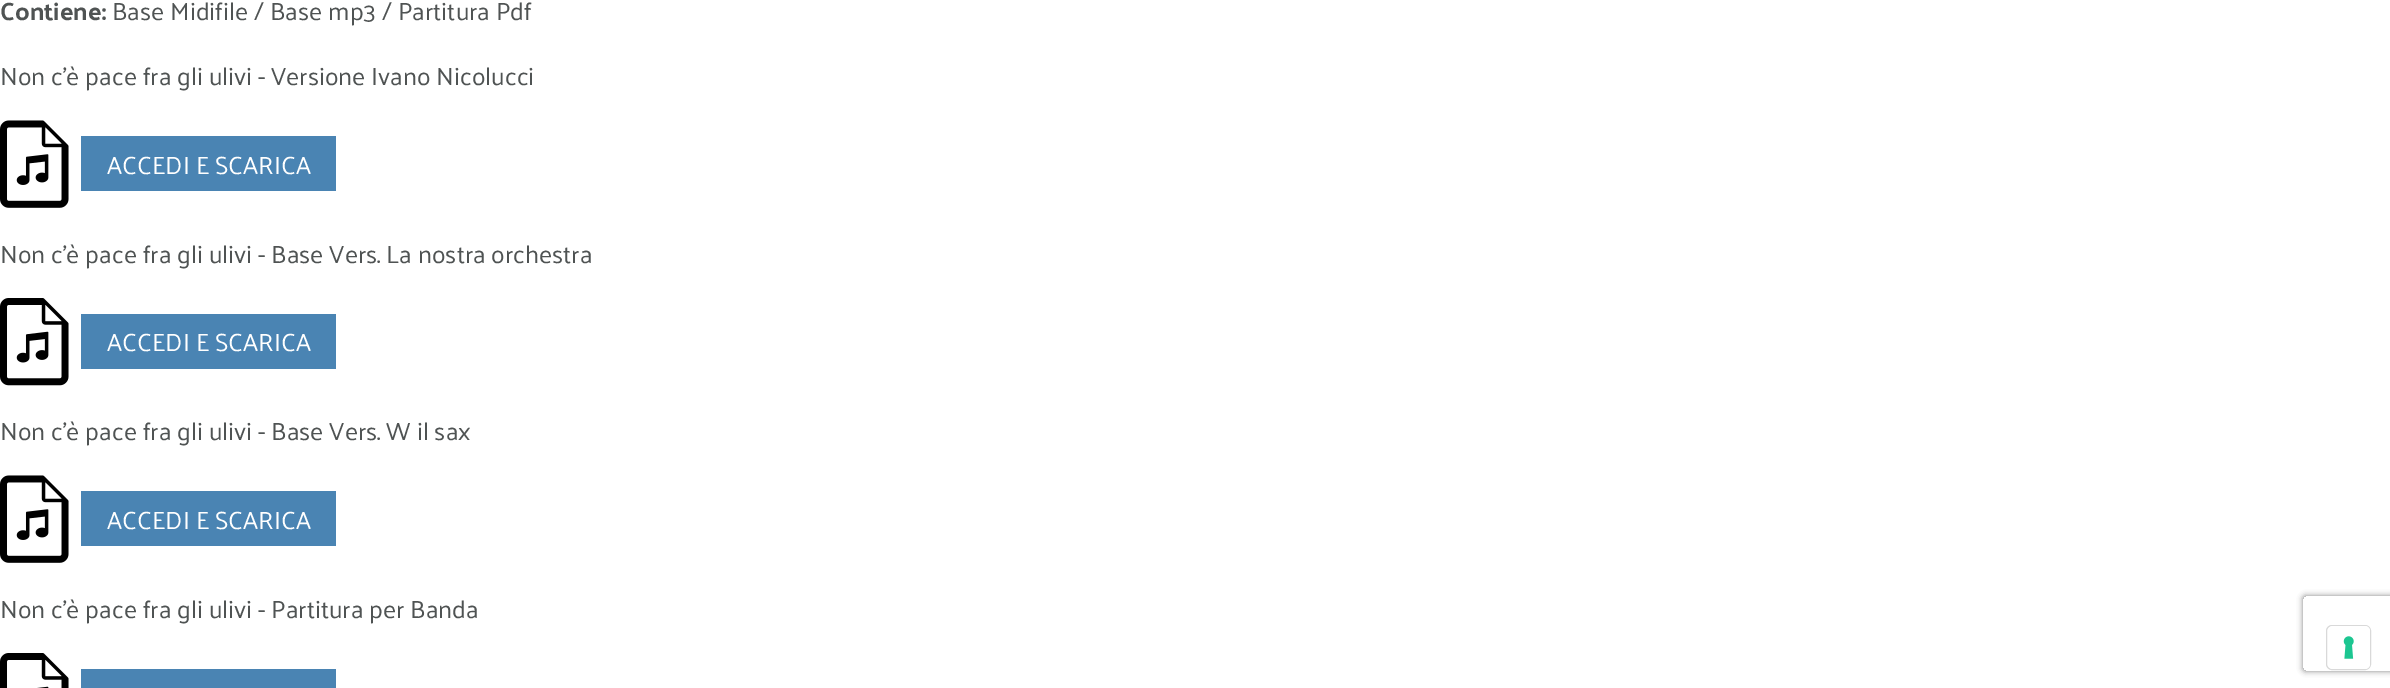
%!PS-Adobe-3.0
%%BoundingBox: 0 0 2390 688
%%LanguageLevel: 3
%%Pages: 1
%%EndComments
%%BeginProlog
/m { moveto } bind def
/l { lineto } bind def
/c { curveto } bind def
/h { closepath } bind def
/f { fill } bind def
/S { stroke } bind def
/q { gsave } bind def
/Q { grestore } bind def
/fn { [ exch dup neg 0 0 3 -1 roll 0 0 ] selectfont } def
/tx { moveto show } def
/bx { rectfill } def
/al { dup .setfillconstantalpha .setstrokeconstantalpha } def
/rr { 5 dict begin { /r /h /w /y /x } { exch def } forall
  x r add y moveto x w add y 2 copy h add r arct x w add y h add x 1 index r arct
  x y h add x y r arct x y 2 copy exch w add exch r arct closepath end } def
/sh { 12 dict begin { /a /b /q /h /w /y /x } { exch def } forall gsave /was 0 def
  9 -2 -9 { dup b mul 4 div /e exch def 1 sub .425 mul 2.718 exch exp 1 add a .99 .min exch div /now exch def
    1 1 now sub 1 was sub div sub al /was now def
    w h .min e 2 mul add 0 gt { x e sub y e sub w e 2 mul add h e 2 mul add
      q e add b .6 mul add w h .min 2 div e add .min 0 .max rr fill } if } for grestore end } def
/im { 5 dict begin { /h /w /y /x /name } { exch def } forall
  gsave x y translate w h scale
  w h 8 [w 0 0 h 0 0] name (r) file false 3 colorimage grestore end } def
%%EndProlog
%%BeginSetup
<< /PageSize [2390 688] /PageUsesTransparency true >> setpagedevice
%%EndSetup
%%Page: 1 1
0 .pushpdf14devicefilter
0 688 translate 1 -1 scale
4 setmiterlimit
1 setgray
0 0 2390 688 bx
/Palanquin-Bold 25 fn
0.31 0.325 0.325 setrgbcolor
(Contiene:) 0 20 tx
/Palanquin-Regular 25 fn
(Base Midifile / Base mp3 / Partitura Pdf) 112 20 tx
(Non c'è pace fra gli ulivi - Versione Ivano Nicolucci) 0 85 tx
(image0.raw) 0 120 69 88 im
0.29 0.518 0.702 setrgbcolor
81 136 255 55 bx
1 setgray
(ACCEDI E SCARICA) 107 174 tx
0.31 0.325 0.325 setrgbcolor
(Non c'è pace fra gli ulivi - Base Vers. La nostra orchestra) 0 263 tx
(image1.raw) 0 298 69 88 im
0.29 0.518 0.702 setrgbcolor
81 314 255 55 bx
1 setgray
(ACCEDI E SCARICA) 107 351 tx
0.31 0.325 0.325 setrgbcolor
(Non c'è pace fra gli ulivi - Base Vers. W il sax) 0 440 tx
(image0.raw) 0 475 69 88 im
0.29 0.518 0.702 setrgbcolor
81 491 255 55 bx
1 setgray
(ACCEDI E SCARICA) 107 529 tx
0.31 0.325 0.325 setrgbcolor
(Non c'è pace fra gli ulivi - Partitura per Banda) 0 618 tx
(image2.raw) 0 653 69 35 im
0.29 0.518 0.702 setrgbcolor
81 669 255 19 bx
q
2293 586 m 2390 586 l 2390 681 l 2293 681 l h 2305.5 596 m 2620.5 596 l 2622 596 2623 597 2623 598.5 c 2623 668.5 l 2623 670 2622 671 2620.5 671 c 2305.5 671 l 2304 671 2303 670 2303 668.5 c 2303 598.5 l 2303 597 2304 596 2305.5 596 c h eoclip newpath
0.502 setgray
2303 596 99 75 2.5 3 1 sh
Q
0.851 setgray
2326.5 625.5 44 44 5.5 rr S
1 setgray
2328 626 42 43 5 rr f
(image3.raw) 2343 636 11 23 im
.poppdf14devicefilter showpage
%%EOF
